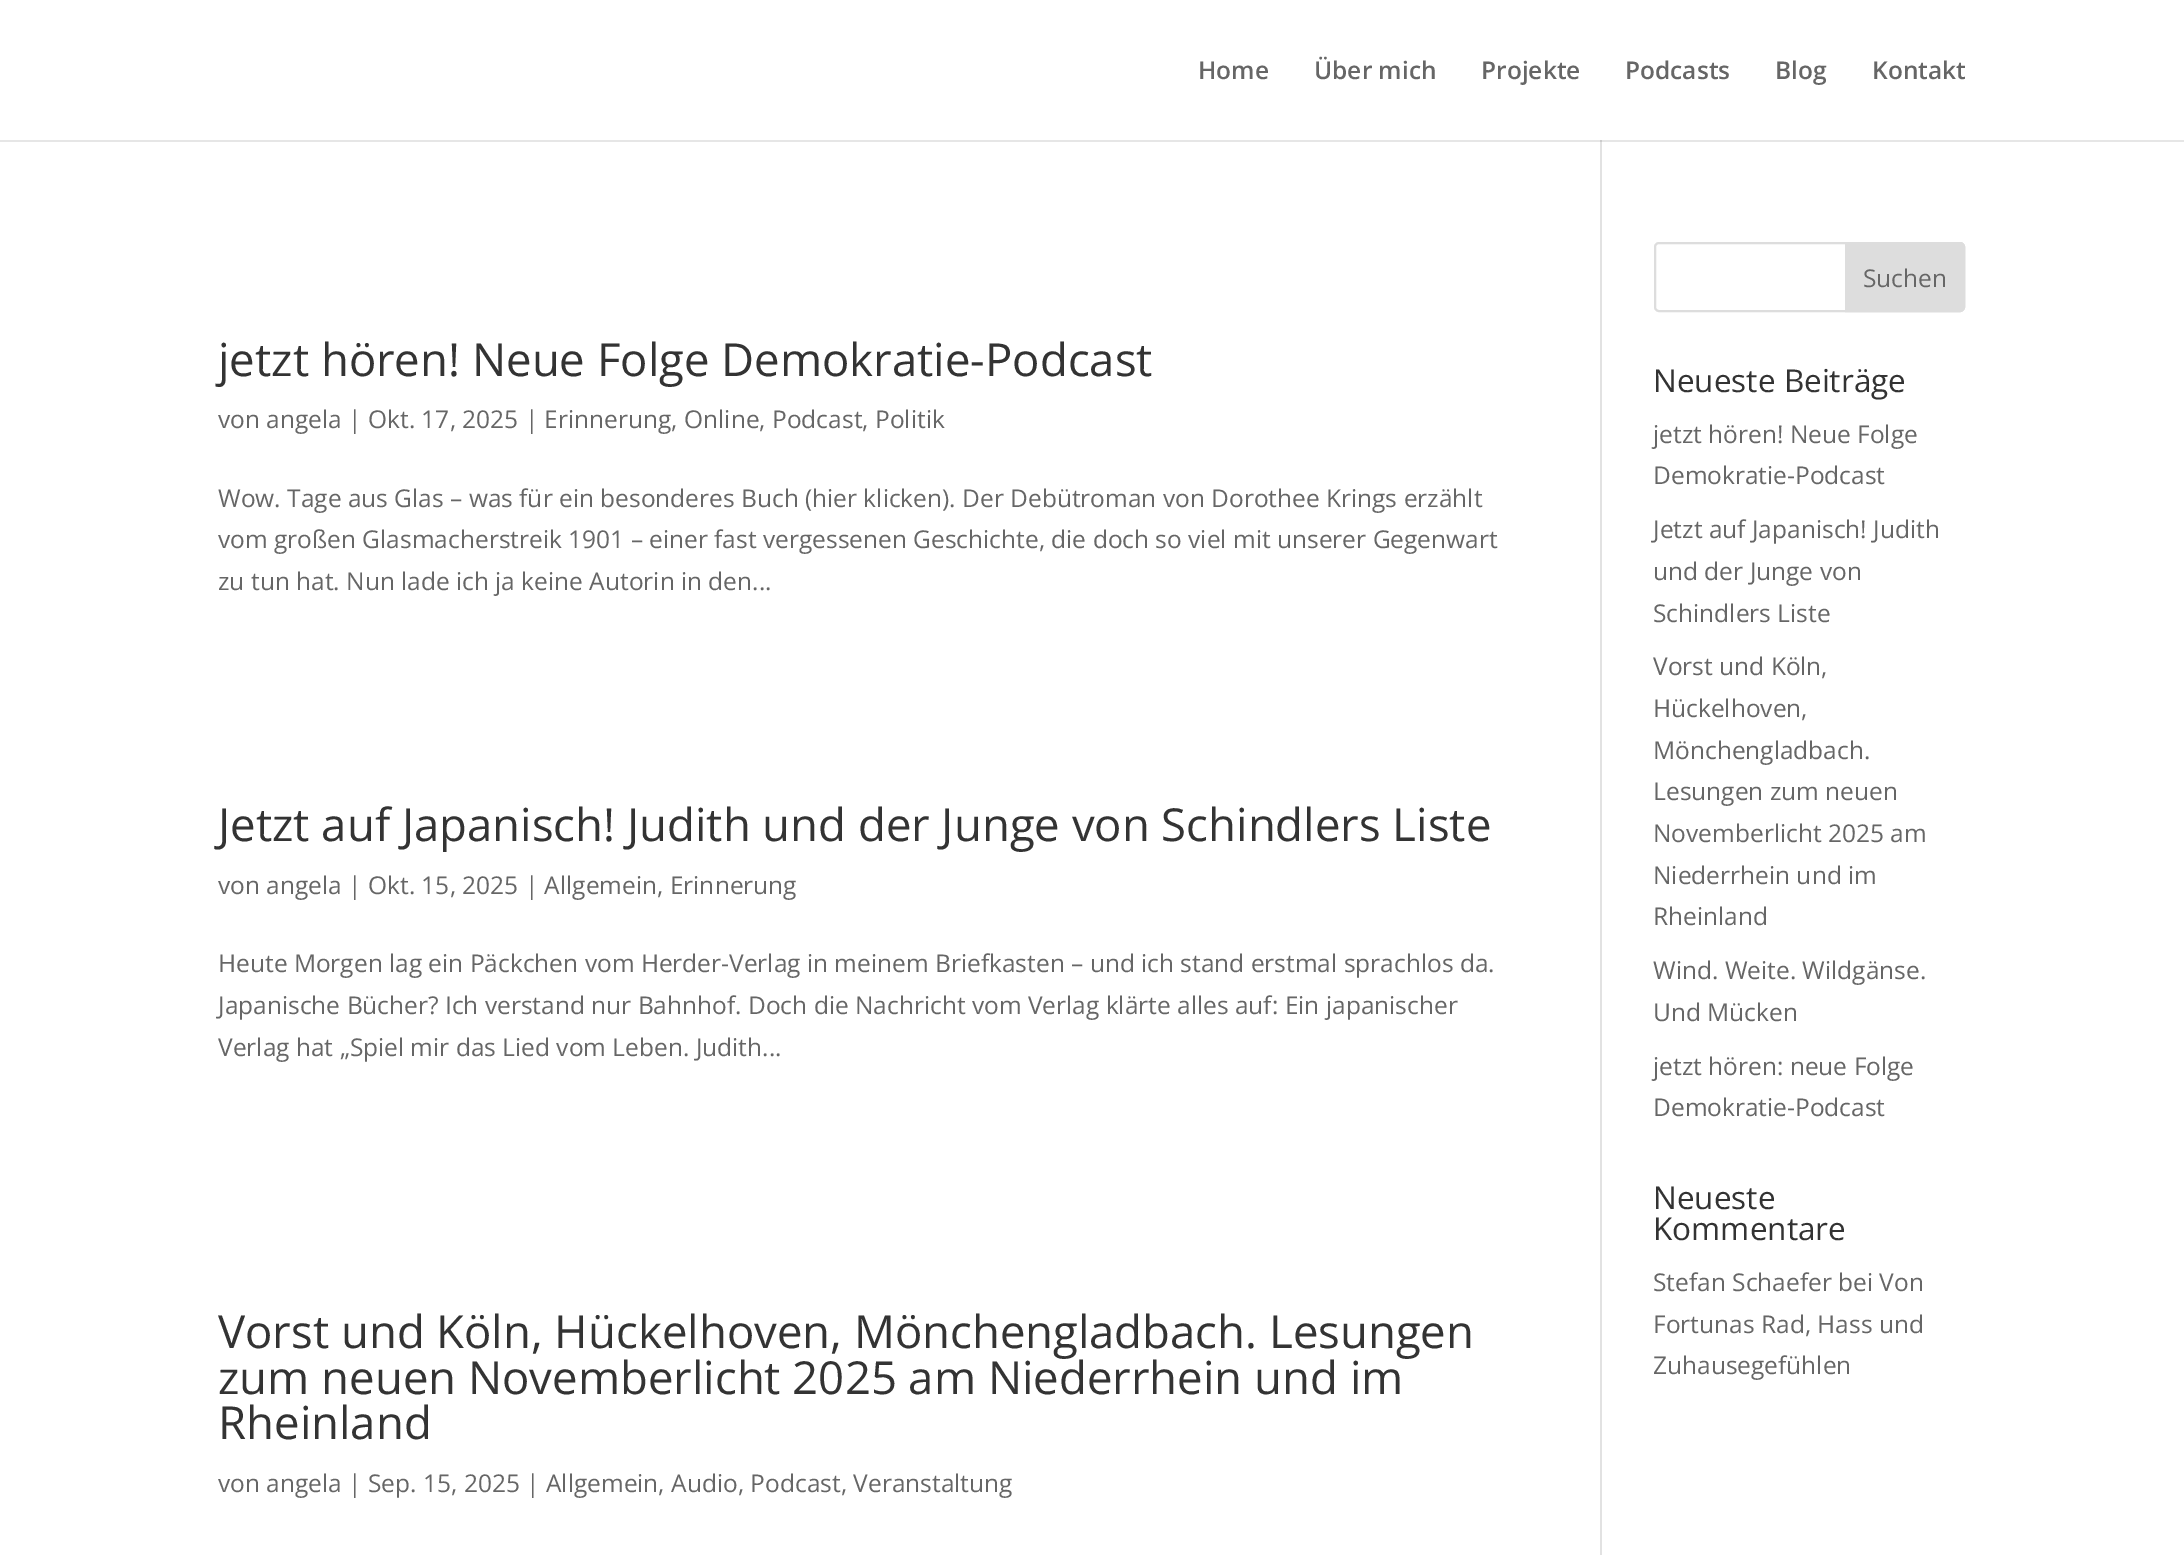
%!PS-Adobe-3.0
%%BoundingBox: 0 0 2184 1555
%%LanguageLevel: 3
%%Pages: 1
%%EndComments
%%BeginProlog
/m { moveto } bind def
/l { lineto } bind def
/c { curveto } bind def
/h { closepath } bind def
/f { fill } bind def
/S { stroke } bind def
/q { gsave } bind def
/Q { grestore } bind def
/w { setlinewidth } bind def
/fn { [ exch dup neg 0 0 3 -1 roll 0 0 ] selectfont } def
/tx { moveto show } def
/bx { rectfill } def
/rr { 5 dict begin { /r /h /w /y /x } { exch def } forall
  x r add y moveto x w add y 2 copy h add r arct x w add y h add x 1 index r arct
  x y h add x y r arct x y 2 copy exch w add exch r arct closepath end } def
%%EndProlog
%%BeginSetup
<< /PageSize [2184 1555] >> setpagedevice
%%EndSetup
%%Page: 1 1
0 1555 translate 1 -1 scale
4 setmiterlimit
1 setgray
0 0 2184 1555 bx
0.902 setgray
0 140 2184 2 bx
/OpenSans-SemiBold 24.5 fn
0.4 setgray
(Home) 1198 79 tx
(Über mich) 1314 79 tx
(Projekte) 1481 79 tx
(Podcasts) 1625 79 tx
(Blog) 1775 79 tx
(Kontakt) 1872 79 tx
0.886 setgray
1600 140 2 1415 bx
0.796 setgray
1600 140 2 2 bx
/OpenSans-Regular 45.5 fn
0.2 setgray
(jetzt hören! Neue Folge Demokratie-Podcast) 218 376 tx
/OpenSans-Regular 24.5 fn
0.4 setgray
(von angela | Okt. 17, 2025 | Erinnerung, Online, Podcast, Politik) 218 428 tx
(Wow. Tage aus Glas – was für ein besonderes Buch \(hier klicken\). Der Debütroman von Dorothee Krings erzählt) 218 507 tx
(vom großen Glasmacherstreik 1901 – einer fast vergessenen Geschichte, die doch so viel mit unserer Gegenwart) 218 548 tx
(zu tun hat. Nun lade ich ja keine Autorin in den...) 218 590 tx
/OpenSans-Regular 45.5 fn
0.2 setgray
(Jetzt auf Japanisch! Judith und der Junge von Schindlers Liste) 218 841 tx
/OpenSans-Regular 24.5 fn
0.4 setgray
(von angela | Okt. 15, 2025 | Allgemein, Erinnerung) 218 894 tx
(Heute Morgen lag ein Päckchen vom Herder-Verlag in meinem Briefkasten – und ich stand erstmal sprachlos da.) 218 972 tx
(Japanische Bücher? Ich verstand nur Bahnhof. Doch die Nachricht vom Verlag klärte alles auf: Ein japanischer) 218 1014 tx
(Verlag hat „Spiel mir das Lied vom Leben. Judith...) 218 1056 tx
/OpenSans-Regular 45.5 fn
0.2 setgray
(Vorst und Köln, Hückelhoven, Mönchengladbach. Lesungen) 218 1348 tx
(zum neuen Novemberlicht 2025 am Niederrhein und im) 218 1394 tx
(Rheinland) 218 1439 tx
/OpenSans-Regular 24.5 fn
0.4 setgray
(von angela | Sep. 15, 2025 | Allgemein, Audio, Podcast, Veranstaltung) 218 1492 tx
0.867 setgray
2 w
1655 243 309 68 4 rr S
1846 243 m 1960 243 l 1962 243 1964 245 1964 247 c 1964 307 l 1964 309 1962 311 1960 311 c 1846 311 l h q f Q
S
0.4 setgray
(Suchen) 1863 287 tx
/OpenSans-Regular 31.5 fn
0.2 setgray
(Neueste Beiträge) 1653 392 tx
/OpenSans-Regular 24.5 fn
0.4 setgray
(jetzt hören! Neue Folge) 1653 443 tx
(Demokratie-Podcast) 1653 484 tx
(Jetzt auf Japanisch! Judith) 1653 538 tx
(und der Junge von) 1653 580 tx
(Schindlers Liste) 1653 622 tx
(Vorst und Köln,) 1653 675 tx
(Hückelhoven,) 1653 717 tx
(Mönchengladbach.) 1653 759 tx
(Lesungen zum neuen) 1653 800 tx
(Novemberlicht 2025 am) 1653 842 tx
(Niederrhein und im) 1653 884 tx
(Rheinland) 1653 925 tx
(Wind. Weite. Wildgänse.) 1653 979 tx
(Und Mücken) 1653 1021 tx
(jetzt hören: neue Folge) 1653 1075 tx
(Demokratie-Podcast) 1653 1116 tx
/OpenSans-Regular 31.5 fn
0.2 setgray
(Neueste) 1653 1209 tx
(Kommentare) 1653 1240 tx
/OpenSans-Regular 24.5 fn
0.4 setgray
(Stefan Schaefer bei Von) 1653 1291 tx
(Fortunas Rad, Hass und) 1653 1333 tx
(Zuhausegefühlen) 1653 1374 tx
showpage
%%EOF
